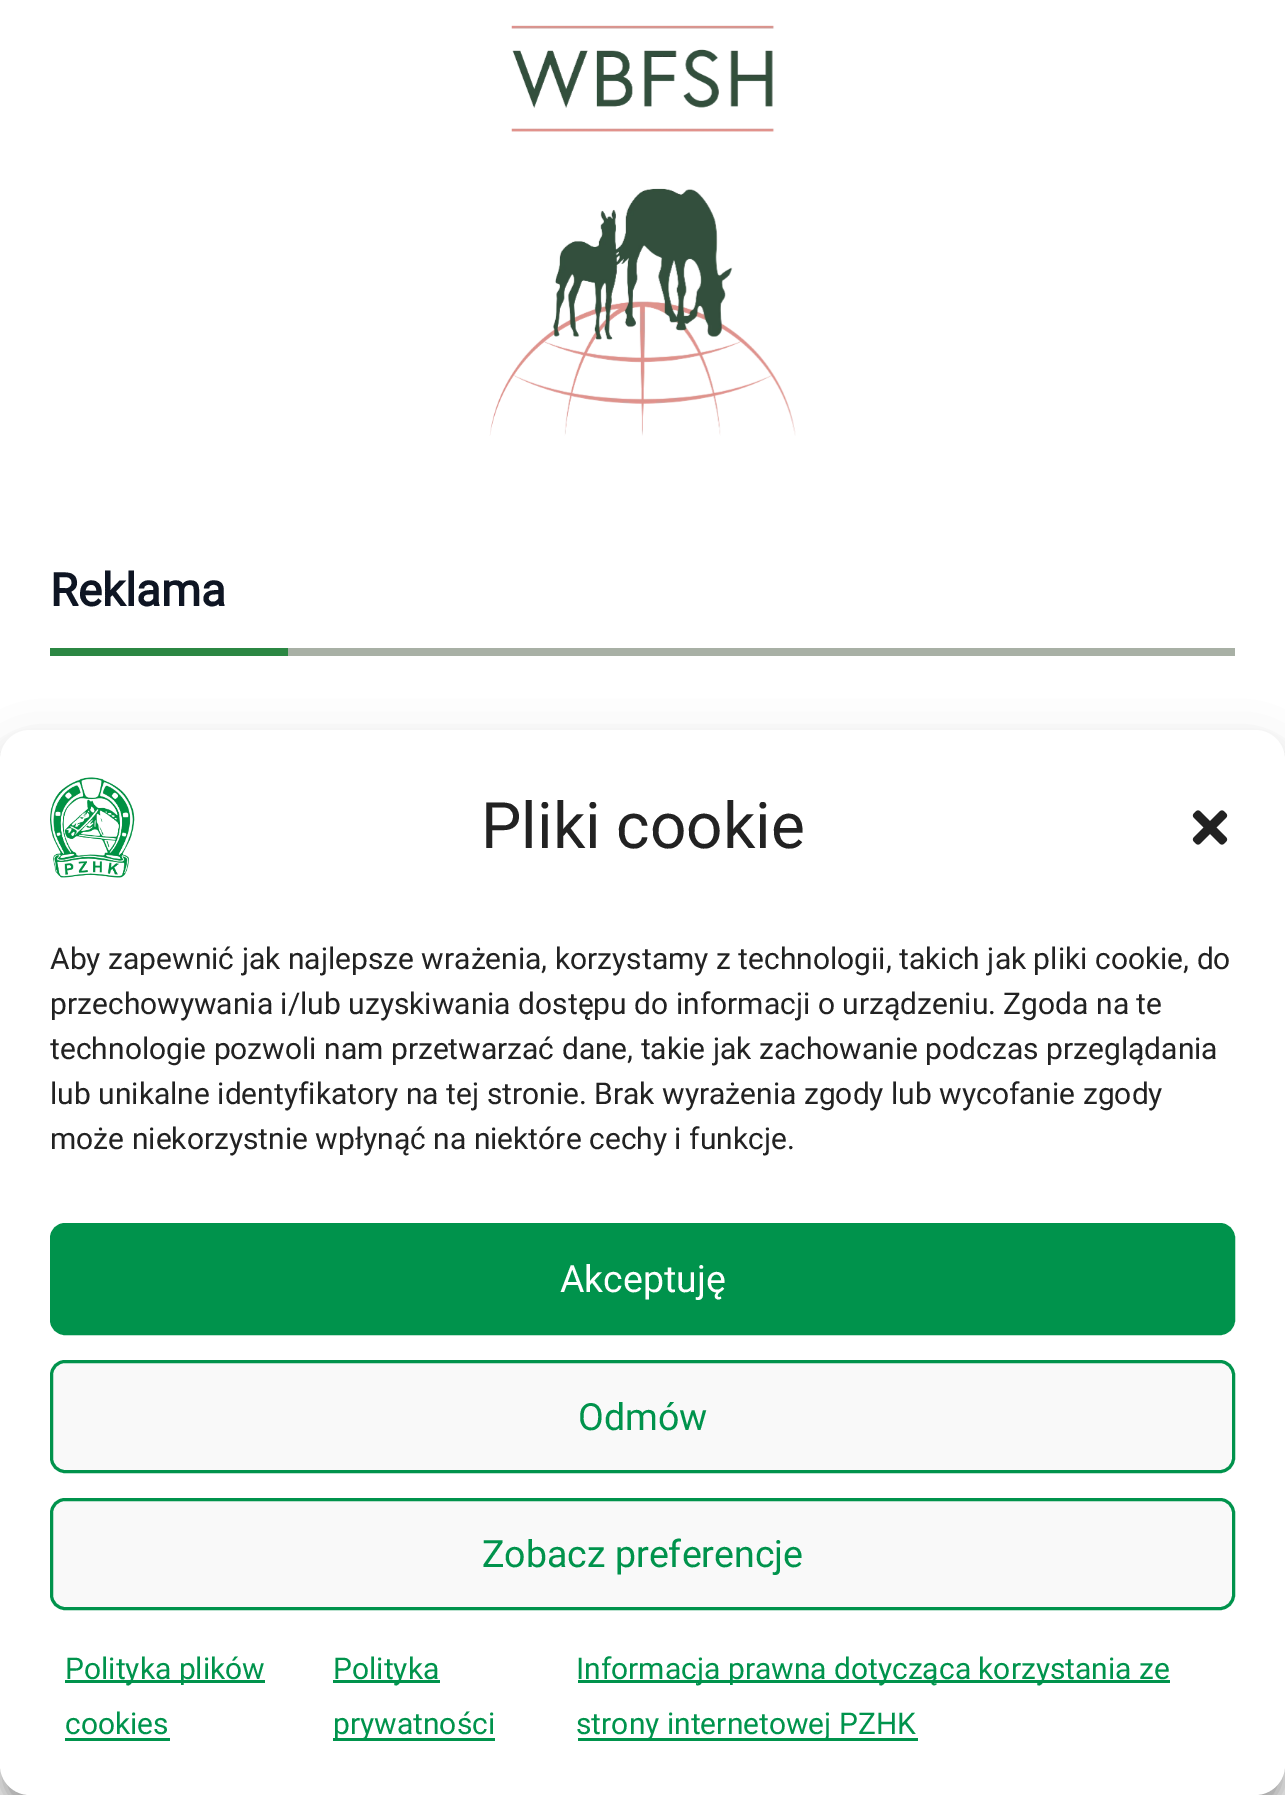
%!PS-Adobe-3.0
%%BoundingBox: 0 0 1285 1795
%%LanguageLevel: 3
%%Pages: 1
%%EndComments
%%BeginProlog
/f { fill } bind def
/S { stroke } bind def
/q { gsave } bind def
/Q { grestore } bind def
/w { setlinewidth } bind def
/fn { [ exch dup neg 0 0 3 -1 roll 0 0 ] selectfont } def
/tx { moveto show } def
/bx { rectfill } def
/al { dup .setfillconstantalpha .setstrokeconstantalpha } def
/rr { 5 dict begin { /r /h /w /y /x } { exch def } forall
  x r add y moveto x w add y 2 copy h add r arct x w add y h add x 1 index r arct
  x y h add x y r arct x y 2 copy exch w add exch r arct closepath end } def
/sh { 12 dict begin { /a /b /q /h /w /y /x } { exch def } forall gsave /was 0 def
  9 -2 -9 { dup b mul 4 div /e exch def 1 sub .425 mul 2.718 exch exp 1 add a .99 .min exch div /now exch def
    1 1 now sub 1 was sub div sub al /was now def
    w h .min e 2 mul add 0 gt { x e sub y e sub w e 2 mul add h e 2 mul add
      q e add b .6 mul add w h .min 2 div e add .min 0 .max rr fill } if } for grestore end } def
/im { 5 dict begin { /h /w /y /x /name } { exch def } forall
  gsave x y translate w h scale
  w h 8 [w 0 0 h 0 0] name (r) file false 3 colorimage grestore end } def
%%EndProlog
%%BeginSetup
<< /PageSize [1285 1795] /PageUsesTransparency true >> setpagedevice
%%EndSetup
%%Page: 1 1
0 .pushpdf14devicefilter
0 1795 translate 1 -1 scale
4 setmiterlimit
1 setgray
0 0 1285 1795 bx
(image0.raw) 489 25 307 411 im
/Roboto-Bold 45.5 fn
0.055 0.082 0.137 setrgbcolor
(Reklama) 50 606 tx
0.169 0.529 0.263 setrgbcolor
50 648 238 8 bx
0.659 0.69 0.647 setrgbcolor
288 648 947 8 bx
0 setgray
0 745 1285 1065 30 7.5 0.23 sh
0 755 1285 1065 30 25 0.19 sh
0.502 setgray
1110 1610 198 150 5 6 1 sh
1 setgray
0 730 1285 1065 30 rr f
(image1.raw) 50 777 85 101 im
/Roboto-Regular 64 fn
0.133 setgray
(Pliki cookie) 481 848 tx
(image2.raw) 1192 810 36 35 im
/Roboto-Regular 30 fn
(Aby zapewnić jak najlepsze wrażenia, korzystamy z technologii, takich jak pliki cookie, do) 50 969 tx
(przechowywania i/lub uzyskiwania dostępu do informacji o urządzeniu. Zgoda na te) 50 1014 tx
(technologie pozwoli nam przetwarzać dane, takie jak zachowanie podczas przeglądania) 50 1059 tx
(lub unikalne identyfikatory na tej stronie. Brak wyrażenia zgody lub wycofanie zgody) 50 1104 tx
(może niekorzystnie wpłynąć na niektóre cechy i funkcje.) 50 1149 tx
0 0.576 0.298 setrgbcolor
51.5 1224.5 1182 109 13.5 rr q f Q
3 w
S
/Roboto-Regular 37.5 fn
1 setgray
(Akceptuję) 560 1292 tx
0.976 setgray
51.5 1361.5 1182 110 13.5 rr q f Q
0 0.576 0.298 setrgbcolor
S
(Odmów) 578 1430 tx
0.976 setgray
51.5 1499.5 1182 109 13.5 rr q f Q
0 0.576 0.298 setrgbcolor
S
(Zobacz preferencje) 482 1567 tx
65 1680 200 3 bx
/Roboto-Regular 30 fn
(Polityka plików) 65 1679 tx
(cookies) 65 1734 tx
65 1738 105 3 bx
333 1680 107 3 bx
(Polityka) 333 1679 tx
333 1738 162 3 bx
(prywatności) 333 1734 tx
578 1680 592 3 bx
(Informacja prawna dotycząca korzystania ze) 576 1679 tx
578 1738 340 3 bx
(strony internetowej PZHK) 576 1734 tx
.poppdf14devicefilter showpage
%%EOF
